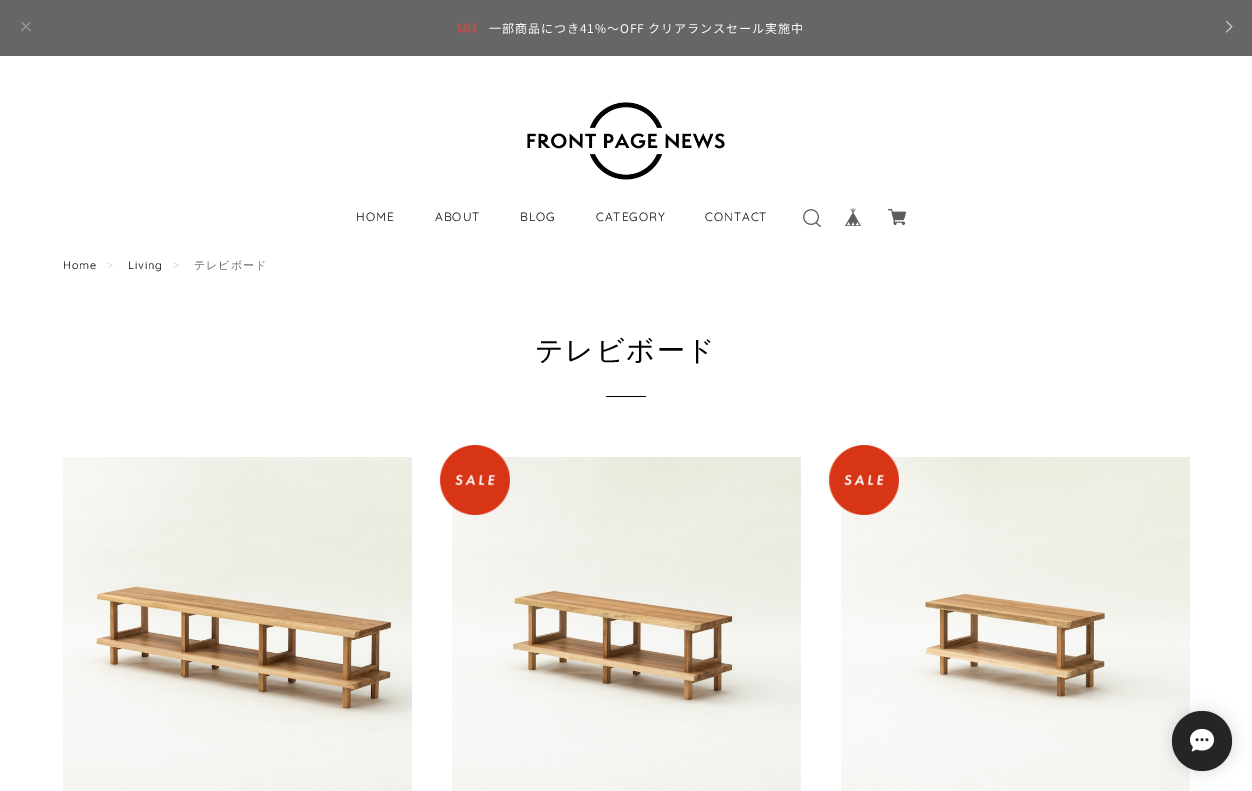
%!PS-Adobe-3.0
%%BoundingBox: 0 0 1252 791
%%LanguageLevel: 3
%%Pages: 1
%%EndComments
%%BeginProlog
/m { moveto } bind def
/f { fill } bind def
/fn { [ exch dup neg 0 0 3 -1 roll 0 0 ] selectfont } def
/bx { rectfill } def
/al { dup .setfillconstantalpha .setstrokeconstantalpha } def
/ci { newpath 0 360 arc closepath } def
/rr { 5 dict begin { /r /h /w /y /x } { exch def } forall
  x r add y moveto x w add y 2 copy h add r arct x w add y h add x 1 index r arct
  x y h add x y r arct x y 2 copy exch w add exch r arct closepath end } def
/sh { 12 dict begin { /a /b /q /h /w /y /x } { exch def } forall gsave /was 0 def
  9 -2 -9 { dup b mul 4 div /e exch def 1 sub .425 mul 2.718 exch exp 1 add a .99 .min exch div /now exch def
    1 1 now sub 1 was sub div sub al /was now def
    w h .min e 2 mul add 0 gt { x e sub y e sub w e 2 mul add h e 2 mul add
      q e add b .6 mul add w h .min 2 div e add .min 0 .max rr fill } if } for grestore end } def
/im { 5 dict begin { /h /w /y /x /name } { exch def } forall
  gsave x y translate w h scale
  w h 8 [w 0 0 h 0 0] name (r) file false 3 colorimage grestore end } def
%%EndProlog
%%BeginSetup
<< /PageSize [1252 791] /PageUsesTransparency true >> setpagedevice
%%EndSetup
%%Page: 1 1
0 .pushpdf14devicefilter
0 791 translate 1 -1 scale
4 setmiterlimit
1 setgray
0 0 1252 791 bx
0.4 setgray
0 0 1252 56 bx
(image0.raw) 21 21 10 11 im
(image1.raw) 457 23 20 10 im
/NotoSansJP-Regular 12 fn
1 setgray
489 33 m 0.95 0 (一部商品につき41%〜OFF クリアランスセール実施中) ashow
(image2.raw) 1225 20 8 13 im
(image3.raw) 527 102 198 78 im
/Quicksand-Regular 12 fn
0 setgray
356 221 m 0.95 0 (HOME) ashow
435 221 m 0.95 0 (ABOUT) ashow
520 221 m 0.95 0 (BLOG) ashow
596 221 m 0.95 0 (CATEGORY) ashow
705 221 m 0.95 0 (CONTACT) ashow
(image4.raw) 803 209 18 19 im
(image5.raw) 844 208 18 18 im
(image6.raw) 888 208 18 18 im
/Quicksand-Regular 11 fn
63 269 m 0.95 0 (Home) ashow
0.8 setgray
107 269 m 0.95 0 (>) ashow
0 setgray
128 269 m 0.95 0 (Living) ashow
0.8 setgray
173 269 m 0.95 0 (>) ashow
/WenQuanYiZenHei-Medium 11 fn
0.412 setgray
194 269 m 0.95 0 (テレビボード) ashow
/WenQuanYiZenHei-Medium 28 fn
0 setgray
535 360 m 1.75 0 (テレビボード) ashow
606 396 40 1 bx
(image7.raw) 63 457 349 334 im
(image9.raw) 452 457 349 334 im
(image8.raw) 439 445 71 70 im
(image11.raw) 841 457 349 334 im
(image10.raw) 828 445 71 70 im
0.2 0.259 0.345 setrgbcolor
1172 711 60 60 30 7.5 0.2 sh
0.145 setgray
1202 741 30 ci f
(image12.raw) 1190 728 24 24 im
.poppdf14devicefilter showpage
%%EOF
